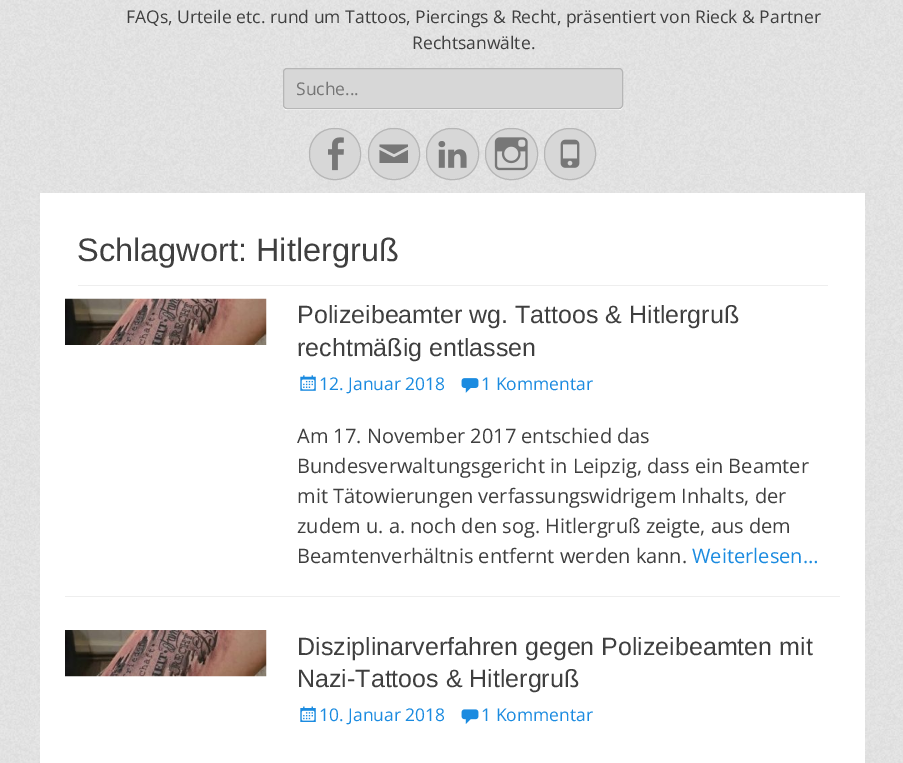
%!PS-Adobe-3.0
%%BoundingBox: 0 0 903 763
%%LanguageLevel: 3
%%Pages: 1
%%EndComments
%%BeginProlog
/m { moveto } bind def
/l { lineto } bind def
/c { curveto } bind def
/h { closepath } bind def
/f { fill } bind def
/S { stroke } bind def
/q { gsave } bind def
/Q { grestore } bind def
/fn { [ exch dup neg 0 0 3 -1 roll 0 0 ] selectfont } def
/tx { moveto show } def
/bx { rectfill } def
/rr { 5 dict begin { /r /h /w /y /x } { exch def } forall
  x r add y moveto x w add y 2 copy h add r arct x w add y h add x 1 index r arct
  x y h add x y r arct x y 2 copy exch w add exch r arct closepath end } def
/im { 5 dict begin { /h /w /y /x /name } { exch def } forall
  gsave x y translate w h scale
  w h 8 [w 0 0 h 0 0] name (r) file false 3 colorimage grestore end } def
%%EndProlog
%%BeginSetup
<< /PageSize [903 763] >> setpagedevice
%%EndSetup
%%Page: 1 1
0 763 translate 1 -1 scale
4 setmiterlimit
1 setgray
0 0 903 763 bx
(image0.raw) 0 0 903 763 im
/OpenSans-Regular 17.5 fn
0.247 setgray
(FAQs, Urteile etc. rund um Tattoos, Piercings & Recht, präsentiert von Rieck & Partner) 126 23 tx
(Rechtsanwälte.) 412 49 tx
1 setgray
283 107 m 284 109 285 110 287 110 c 619 110 l 621 110 623 108 623 106 c 623 73 l 622 71 l 622 99 l 622 102 624 109 619 109 c 285 109 l h f
0.843 setgray
283.5 68.5 339 40 3.5 rr q f Q
0.714 setgray
S
0.459 setgray
(Suche...) 296 95 tx
0.843 setgray
309.5 128.5 51 51 24.5 rr q f Q
0.714 setgray
S
(image1.raw) 328 137 16 34 im
0.843 setgray
368.5 128.5 51 51 24.5 rr q f Q
0.714 setgray
S
0.467 setgray
379.5 144.5 m 408 144.5 l 408 146.5 l 394 154 l 379.5 146.5 l h 379.5 150 m 394 157.5 l 408 150 l 408 163 l 379.5 163 l h f
0.843 setgray
426.5 128.5 52 51 24.5 rr q f Q
0.714 setgray
S
(image2.raw) 438 141 29 27 im
0.843 setgray
485.5 128.5 52 51 24.5 rr q f Q
0.714 setgray
S
(image3.raw) 494 137 34 34 im
0.843 setgray
544.5 128.5 51 51 24.5 rr q f Q
0.714 setgray
S
(image4.raw) 560 139 20 29 im
1 setgray
40 193 825 570 bx
0.933 setgray
78 285 750 1 bx
/LiberationSans-Regular 32.5 fn
0.247 setgray
(Schlagwort: Hitlergruß) 77 261 tx
0.933 setgray
65 596 775 1 bx
(image5.raw) 65 298 202 47 im
/LiberationSans-Regular 25 fn
0.247 setgray
(Polizeibeamter wg. Tattoos & Hitlergruß) 297 323 tx
(rechtmäßig entlassen) 297 356 tx
(image6.raw) 300 375 16 16 im
/OpenSans-Regular 17.5 fn
0.106 0.545 0.878 setrgbcolor
(12. Januar 2018) 319 390 tx
(image7.raw) 461 378 18 15 im
(1 Kommentar) 481 390 tx
/OpenSans-Regular 20 fn
0.247 setgray
(Am 17. November 2017 entschied das) 297 443 tx
(Bundesverwaltungsgericht in Leipzig, dass ein Beamter) 297 473 tx
(mit Tätowierungen verfassungswidrigem Inhalts, der) 297 503 tx
(zudem u. a. noch den sog. Hitlergruß zeigte, aus dem) 297 533 tx
(Beamtenverhältnis entfernt werden kann.) 297 563 tx
0.106 0.545 0.878 setrgbcolor
(Weiterlesen…) 692 563 tx
(image8.raw) 65 630 202 47 im
/LiberationSans-Regular 25 fn
0.247 setgray
(Disziplinarverfahren gegen Polizeibeamten mit) 297 655 tx
(Nazi-Tattoos & Hitlergruß) 297 687 tx
(image9.raw) 300 706 16 16 im
/OpenSans-Regular 17.5 fn
0.106 0.545 0.878 setrgbcolor
(10. Januar 2018) 319 721 tx
(image10.raw) 461 709 18 15 im
(1 Kommentar) 481 721 tx
showpage
%%EOF
